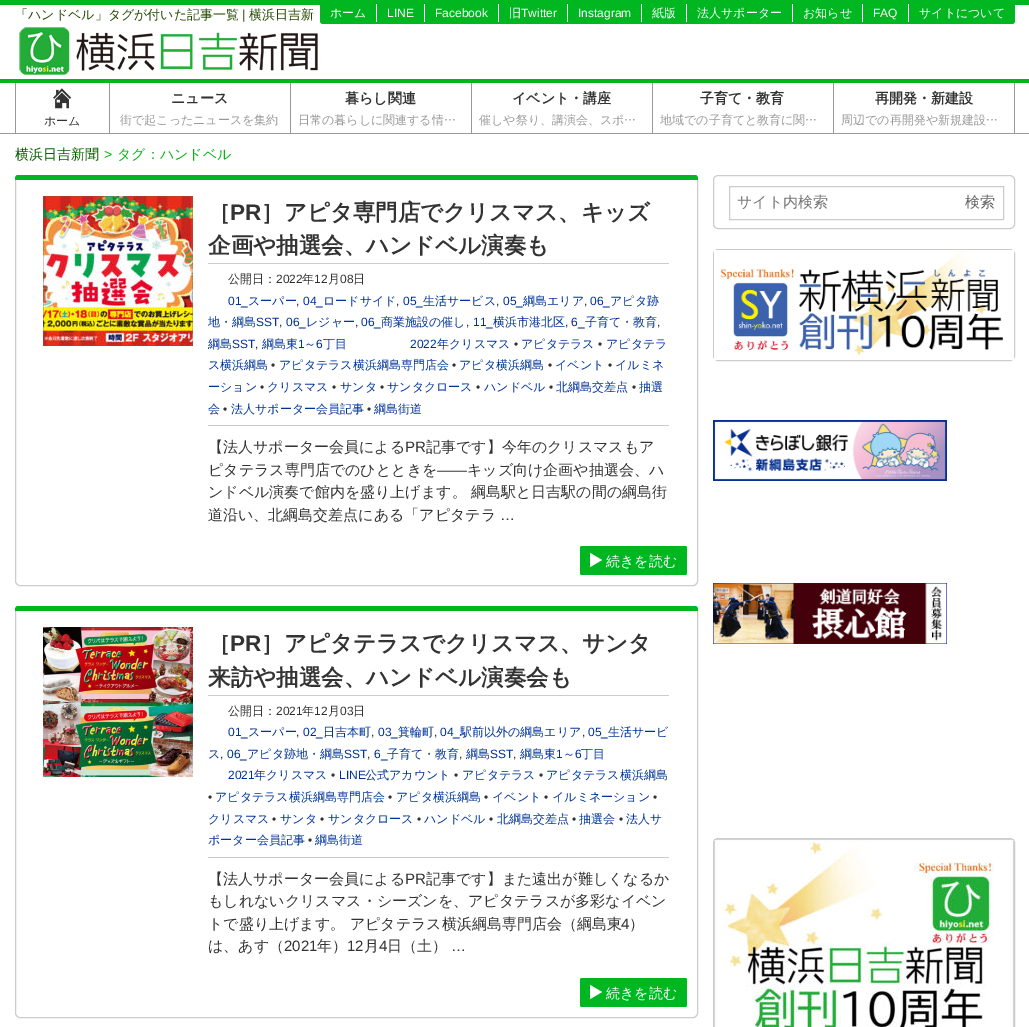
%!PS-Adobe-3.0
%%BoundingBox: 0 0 1029 1027
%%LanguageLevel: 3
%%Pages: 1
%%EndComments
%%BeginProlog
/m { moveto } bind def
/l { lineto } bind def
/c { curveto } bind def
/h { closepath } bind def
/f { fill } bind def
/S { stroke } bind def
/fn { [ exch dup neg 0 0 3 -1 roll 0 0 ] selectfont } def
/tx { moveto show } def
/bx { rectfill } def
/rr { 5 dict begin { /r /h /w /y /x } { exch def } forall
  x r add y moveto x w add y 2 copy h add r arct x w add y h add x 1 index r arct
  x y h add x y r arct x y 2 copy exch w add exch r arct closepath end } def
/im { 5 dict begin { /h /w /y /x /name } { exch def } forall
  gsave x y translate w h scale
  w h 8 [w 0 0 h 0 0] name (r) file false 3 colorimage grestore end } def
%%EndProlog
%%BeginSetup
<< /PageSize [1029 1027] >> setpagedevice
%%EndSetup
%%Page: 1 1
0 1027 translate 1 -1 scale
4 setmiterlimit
1 setgray
0 0 1029 1027 bx
0 0.718 0.129 setrgbcolor
0 0 1029 5 bx
0 79 1029 4 bx
/WenQuanYiZenHei-Medium 13 fn
0.137 0.278 0 setrgbcolor
(「ハンドベル」タグが付いた記事一覧) 15 19 tx
/LiberationSans-Regular 13 fn
(|) 242 19 tx
/WenQuanYiZenHei-Medium 13 fn
(横浜日吉新) 249 19 tx
0 0.718 0.129 setrgbcolor
320 2 m 1015 2 l 1015 21 l 1015 22.5 1013.5 24 1012 24 c 323 24 l 321.5 24 320 22.5 320 21 c h f
1 setgray
376 4 1 18 bx
/WenQuanYiZenHei-Medium 12 fn
(ホーム) 330 17 tx
424 4 1 18 bx
/LiberationSans-Regular 12 fn
(LINE) 387 17 tx
498 4 1 18 bx
(Facebook) 435 17 tx
567 4 1 18 bx
/WenQuanYiZenHei-Medium 12 fn
(旧) 509 17 tx
/LiberationSans-Regular 12 fn
(Twitter) 521 17 tx
641 4 1 18 bx
(Instagram) 578 17 tx
686 4 1 18 bx
/WenQuanYiZenHei-Medium 12 fn
(紙版) 652 17 tx
792 4 1 18 bx
(法人サポーター) 697 17 tx
862 4 1 18 bx
(お知らせ) 803 17 tx
908 4 1 18 bx
/LiberationSans-Regular 12 fn
(FAQ) 873 17 tx
/WenQuanYiZenHei-Medium 12 fn
(サイトについて) 919 17 tx
(image0.raw) 19 27 299 48 im
0.6 setgray
0 133 1029 1 bx
109 83 1 50 bx
15 83 1 50 bx
(image1.raw) 53 88 19 21 im
0.2 setgray
(ホーム) 44 125 tx
0.6 setgray
290 83 1 50 bx
/WenQuanYiZenHei-Bold 14 fn
0.2 setgray
(ニュース) 171 103 tx
/WenQuanYiZenHei-Medium 12 fn
0.6 setgray
(街で起こったニュースを集約) 120 124 tx
471 83 1 50 bx
/WenQuanYiZenHei-Bold 14 fn
0.2 setgray
(暮らし関連) 345 103 tx
/WenQuanYiZenHei-Medium 12 fn
0.6 setgray
(日常の暮らしに関連する情…) 298 124 tx
652 83 1 50 bx
/WenQuanYiZenHei-Bold 14 fn
0.2 setgray
(イベント・講座) 512 103 tx
/WenQuanYiZenHei-Medium 12 fn
0.6 setgray
(催しや祭り、講演会、スポ…) 479 124 tx
833 83 1 50 bx
/WenQuanYiZenHei-Bold 14 fn
0.2 setgray
(子育て・教育) 700 103 tx
/WenQuanYiZenHei-Medium 12 fn
0.6 setgray
(地域での子育てと教育に関…) 660 124 tx
1014 83 1 50 bx
/WenQuanYiZenHei-Bold 14 fn
0.2 setgray
(再開発・新建設) 875 103 tx
/WenQuanYiZenHei-Medium 12 fn
0.6 setgray
(周辺での再開発や新規建設…) 841 124 tx
/WenQuanYiZenHei-Medium 14 fn
0.031 0.376 0 setrgbcolor
(横浜日吉新聞) 15 159 tx
/LiberationSans-Regular 14 fn
0 0.71 0.071 setrgbcolor
(>) 104 159 tx
/WenQuanYiZenHei-Medium 14 fn
(タグ：ハンドベル) 117 159 tx
0.8 setgray
15.5 175.5 682 410 4.5 rr S
0 0.718 0.129 setrgbcolor
18 175 m 695 175 l 698 175 698 178 698 180 c 15 180 l 15 178 15 175 18 175 c h 18 180 m 697 180 l 16 180 l h eofill
(image2.raw) 43 196 150 150 im
/WenQuanYiZenHei-Bold 22.5 fn
0.2 setgray
(［) 208 220 tx
/LiberationSans-Bold 22.5 fn
(PR) 230 220 tx
/WenQuanYiZenHei-Bold 22.5 fn
(］アピタ専門店でクリスマス、キッズ) 261 220 tx
(企画や抽選会、ハンドベル演奏も) 208 253 tx
0.8 setgray
208 263 461 1 bx
208 425 461 1 bx
/WenQuanYiZenHei-Medium 12 fn
0.2 setgray
(公開日：) 228 283 tx
/LiberationSans-Regular 12 fn
(2022) 276 283 tx
/WenQuanYiZenHei-Medium 12 fn
(年) 302 283 tx
/LiberationSans-Regular 12 fn
(12) 314 283 tx
/WenQuanYiZenHei-Medium 12 fn
(月) 328 283 tx
/LiberationSans-Regular 12 fn
(08) 340 283 tx
/WenQuanYiZenHei-Medium 12 fn
(日) 353 283 tx
/LiberationSans-Regular 12 fn
0 0.2 0.6 setrgbcolor
(01_) 228 305 tx
/WenQuanYiZenHei-Medium 12 fn
(スーパー) 248 305 tx
/LiberationSans-Regular 12 fn
0.2 setgray
(,) 296 305 tx
0 0.2 0.6 setrgbcolor
(04_) 303 305 tx
/WenQuanYiZenHei-Medium 12 fn
(ロードサイド) 323 305 tx
/LiberationSans-Regular 12 fn
0.2 setgray
(,) 396 305 tx
0 0.2 0.6 setrgbcolor
(05_) 403 305 tx
/WenQuanYiZenHei-Medium 12 fn
(生活サービス) 423 305 tx
/LiberationSans-Regular 12 fn
0.2 setgray
(,) 496 305 tx
0 0.2 0.6 setrgbcolor
(05_) 503 305 tx
/WenQuanYiZenHei-Medium 12 fn
(綱島エリア) 523 305 tx
/LiberationSans-Regular 12 fn
0.2 setgray
(,) 584 305 tx
0 0.2 0.6 setrgbcolor
(06_) 590 305 tx
/WenQuanYiZenHei-Medium 12 fn
(アピタ跡) 610 305 tx
(地・綱島) 208 326 tx
/LiberationSans-Regular 12 fn
(SST) 256 326 tx
0.2 setgray
(,) 279 326 tx
0 0.2 0.6 setrgbcolor
(06_) 286 326 tx
/WenQuanYiZenHei-Medium 12 fn
(レジャー) 306 326 tx
/LiberationSans-Regular 12 fn
0.2 setgray
(,) 355 326 tx
0 0.2 0.6 setrgbcolor
(06_) 361 326 tx
/WenQuanYiZenHei-Medium 12 fn
(商業施設の催し) 381 326 tx
/LiberationSans-Regular 12 fn
0.2 setgray
(,) 466 326 tx
0 0.2 0.6 setrgbcolor
(11_) 473 326 tx
/WenQuanYiZenHei-Medium 12 fn
(横浜市港北区) 493 326 tx
/LiberationSans-Regular 12 fn
0.2 setgray
(,) 565 326 tx
0 0.2 0.6 setrgbcolor
(6_) 571 326 tx
/WenQuanYiZenHei-Medium 12 fn
(子育て・教育) 585 326 tx
/LiberationSans-Regular 12 fn
0.2 setgray
(,) 657 326 tx
/WenQuanYiZenHei-Medium 12 fn
0 0.2 0.6 setrgbcolor
(綱島) 208 348 tx
/LiberationSans-Regular 12 fn
(SST) 232 348 tx
/WenQuanYiZenHei-Medium 12 fn
(綱島東) 262 348 tx
/LiberationSans-Regular 12 fn
(1) 298 348 tx
/WenQuanYiZenHei-Medium 12 fn
(～) 304 348 tx
/LiberationSans-Regular 12 fn
(6) 316 348 tx
/WenQuanYiZenHei-Medium 12 fn
(丁目) 323 348 tx
/LiberationSans-Regular 12 fn
(2022) 410 348 tx
/WenQuanYiZenHei-Medium 12 fn
(年クリスマス) 437 348 tx
/LiberationSans-Regular 12 fn
0.2 setgray
(•) 514 348 tx
/WenQuanYiZenHei-Medium 12 fn
0 0.2 0.6 setrgbcolor
(アピタテラス) 521 348 tx
/LiberationSans-Regular 12 fn
0.2 setgray
(•) 598 348 tx
/WenQuanYiZenHei-Medium 12 fn
0 0.2 0.6 setrgbcolor
(アピタテラ) 606 348 tx
/LiberationSans-Regular 12 fn
0.2 setgray
(,) 255 348 tx
/WenQuanYiZenHei-Medium 12 fn
0 0.2 0.6 setrgbcolor
(ス横浜綱島) 208 369 tx
/LiberationSans-Regular 12 fn
0.2 setgray
(•) 271 369 tx
/WenQuanYiZenHei-Medium 12 fn
0 0.2 0.6 setrgbcolor
(アピタテラス横浜綱島専門店会) 279 369 tx
/LiberationSans-Regular 12 fn
0.2 setgray
(•) 452 369 tx
/WenQuanYiZenHei-Medium 12 fn
0 0.2 0.6 setrgbcolor
(アピタ横浜綱島) 459 369 tx
/LiberationSans-Regular 12 fn
0.2 setgray
(•) 548 369 tx
/WenQuanYiZenHei-Medium 12 fn
0 0.2 0.6 setrgbcolor
(イベント) 555 369 tx
/LiberationSans-Regular 12 fn
0.2 setgray
(•) 608 369 tx
/WenQuanYiZenHei-Medium 12 fn
0 0.2 0.6 setrgbcolor
(イルミネ) 615 369 tx
(ーション) 208 391 tx
/LiberationSans-Regular 12 fn
0.2 setgray
(•) 260 391 tx
/WenQuanYiZenHei-Medium 12 fn
0 0.2 0.6 setrgbcolor
(クリスマス) 267 391 tx
/LiberationSans-Regular 12 fn
0.2 setgray
(•) 332 391 tx
/WenQuanYiZenHei-Medium 12 fn
0 0.2 0.6 setrgbcolor
(サンタ) 340 391 tx
/LiberationSans-Regular 12 fn
0.2 setgray
(•) 380 391 tx
/WenQuanYiZenHei-Medium 12 fn
0 0.2 0.6 setrgbcolor
(サンタクロース) 387 391 tx
/LiberationSans-Regular 12 fn
0.2 setgray
(•) 476 391 tx
/WenQuanYiZenHei-Medium 12 fn
0 0.2 0.6 setrgbcolor
(ハンドベル) 484 391 tx
/LiberationSans-Regular 12 fn
0.2 setgray
(•) 549 391 tx
/WenQuanYiZenHei-Medium 12 fn
0 0.2 0.6 setrgbcolor
(北綱島交差点) 556 391 tx
/LiberationSans-Regular 12 fn
0.2 setgray
(•) 632 391 tx
/WenQuanYiZenHei-Medium 12 fn
0 0.2 0.6 setrgbcolor
(抽選) 639 391 tx
(会) 208 413 tx
/LiberationSans-Regular 12 fn
0.2 setgray
(•) 223 413 tx
/WenQuanYiZenHei-Medium 12 fn
0 0.2 0.6 setrgbcolor
(法人サポーター会員記事) 231 413 tx
/LiberationSans-Regular 12 fn
0.2 setgray
(•) 367 413 tx
/WenQuanYiZenHei-Medium 12 fn
0 0.2 0.6 setrgbcolor
(綱島街道) 374 413 tx
/WenQuanYiZenHei-Medium 15 fn
0.2 setgray
(【法人サポーター会員による) 208 452 tx
/LiberationSans-Regular 15 fn
(PR) 405 452 tx
/WenQuanYiZenHei-Medium 15 fn
(記事です】今年のクリスマスもア) 426 452 tx
(ピタテラス専門店でのひとときを) 208 475 tx
/LiberationSans-Regular 15 fn
(――) 437 475 tx
/WenQuanYiZenHei-Medium 15 fn
(キッズ向け企画や抽選会、ハ) 467 475 tx
(ンドベル演奏で館内を盛り上げます。 綱島駅と日吉駅の間の綱島街) 208 497 tx
(道沿い、北綱島交差点にある「アピタテラ) 208 520 tx
/LiberationSans-Regular 15 fn
(…) 500 520 tx
0 0.718 0.129 setrgbcolor
580 546 107 29 2 rr f
1 setgray
602 560 m 590 553 l 590 567 l h f
/WenQuanYiZenHei-Medium 14 fn
(続きを読む) 606 566 tx
0.8 setgray
15.5 606.5 682 411 4.5 rr S
0 0.718 0.129 setrgbcolor
18 606 m 695 606 l 698 606 698 609 698 611 c 15 611 l 15 609 15 606 18 606 c h 18 611 m 697 611 l 16 611 l h eofill
(image3.raw) 43 627 150 150 im
/WenQuanYiZenHei-Bold 22.5 fn
0.2 setgray
(［) 208 651 tx
/LiberationSans-Bold 22.5 fn
(PR) 230 651 tx
/WenQuanYiZenHei-Bold 22.5 fn
(］アピタテラスでクリスマス、サンタ) 261 651 tx
(来訪や抽選会、ハンドベル演奏会も) 208 685 tx
0.8 setgray
208 695 461 1 bx
208 857 461 1 bx
/WenQuanYiZenHei-Medium 12 fn
0.2 setgray
(公開日：) 228 715 tx
/LiberationSans-Regular 12 fn
(2021) 276 715 tx
/WenQuanYiZenHei-Medium 12 fn
(年) 302 715 tx
/LiberationSans-Regular 12 fn
(12) 314 715 tx
/WenQuanYiZenHei-Medium 12 fn
(月) 328 715 tx
/LiberationSans-Regular 12 fn
(03) 340 715 tx
/WenQuanYiZenHei-Medium 12 fn
(日) 353 715 tx
/LiberationSans-Regular 12 fn
0 0.2 0.6 setrgbcolor
(01_) 228 736 tx
/WenQuanYiZenHei-Medium 12 fn
(スーパー) 248 736 tx
/LiberationSans-Regular 12 fn
0.2 setgray
(,) 296 736 tx
0 0.2 0.6 setrgbcolor
(02_) 303 736 tx
/WenQuanYiZenHei-Medium 12 fn
(日吉本町) 323 736 tx
/LiberationSans-Regular 12 fn
0.2 setgray
(,) 371 736 tx
0 0.2 0.6 setrgbcolor
(03_) 378 736 tx
/WenQuanYiZenHei-Medium 12 fn
(箕輪町) 398 736 tx
/LiberationSans-Regular 12 fn
0.2 setgray
(,) 434 736 tx
0 0.2 0.6 setrgbcolor
(04_) 440 736 tx
/WenQuanYiZenHei-Medium 12 fn
(駅前以外の綱島エリア) 460 736 tx
/LiberationSans-Regular 12 fn
0.2 setgray
(,) 582 736 tx
0 0.2 0.6 setrgbcolor
(05_) 588 736 tx
/WenQuanYiZenHei-Medium 12 fn
(生活サービ) 608 736 tx
(ス) 208 758 tx
/LiberationSans-Regular 12 fn
(06_) 227 758 tx
/WenQuanYiZenHei-Medium 12 fn
(アピタ跡地・綱島) 247 758 tx
/LiberationSans-Regular 12 fn
(SST) 344 758 tx
(6_) 374 758 tx
/WenQuanYiZenHei-Medium 12 fn
(子育て・教育) 387 758 tx
(綱島) 466 758 tx
/LiberationSans-Regular 12 fn
(SST) 490 758 tx
/WenQuanYiZenHei-Medium 12 fn
(綱島東) 520 758 tx
/LiberationSans-Regular 12 fn
(1) 556 758 tx
/WenQuanYiZenHei-Medium 12 fn
(～) 563 758 tx
/LiberationSans-Regular 12 fn
(6) 575 758 tx
/WenQuanYiZenHei-Medium 12 fn
(丁目) 581 758 tx
/LiberationSans-Regular 12 fn
0.2 setgray
(,) 220 758 tx
(,) 367 758 tx
(,) 459 758 tx
(,) 513 758 tx
0 0.2 0.6 setrgbcolor
(2021) 228 779 tx
/WenQuanYiZenHei-Medium 12 fn
(年クリスマス) 254 779 tx
/LiberationSans-Regular 12 fn
0.2 setgray
(•) 331 779 tx
0 0.2 0.6 setrgbcolor
(LINE) 339 779 tx
/WenQuanYiZenHei-Medium 12 fn
(公式アカウント) 365 779 tx
/LiberationSans-Regular 12 fn
0.2 setgray
(•) 454 779 tx
/WenQuanYiZenHei-Medium 12 fn
0 0.2 0.6 setrgbcolor
(アピタテラス) 462 779 tx
/LiberationSans-Regular 12 fn
0.2 setgray
(•) 539 779 tx
/WenQuanYiZenHei-Medium 12 fn
0 0.2 0.6 setrgbcolor
(アピタテラス横浜綱島) 546 779 tx
/LiberationSans-Regular 12 fn
0.2 setgray
(•) 208 801 tx
/WenQuanYiZenHei-Medium 12 fn
0 0.2 0.6 setrgbcolor
(アピタテラス横浜綱島専門店会) 215 801 tx
/LiberationSans-Regular 12 fn
0.2 setgray
(•) 388 801 tx
/WenQuanYiZenHei-Medium 12 fn
0 0.2 0.6 setrgbcolor
(アピタ横浜綱島) 396 801 tx
/LiberationSans-Regular 12 fn
0.2 setgray
(•) 484 801 tx
/WenQuanYiZenHei-Medium 12 fn
0 0.2 0.6 setrgbcolor
(イベント) 492 801 tx
/LiberationSans-Regular 12 fn
0.2 setgray
(•) 544 801 tx
/WenQuanYiZenHei-Medium 12 fn
0 0.2 0.6 setrgbcolor
(イルミネーション) 552 801 tx
/LiberationSans-Regular 12 fn
0.2 setgray
(•) 653 801 tx
/WenQuanYiZenHei-Medium 12 fn
0 0.2 0.6 setrgbcolor
(クリスマス) 208 823 tx
/LiberationSans-Regular 12 fn
0.2 setgray
(•) 272 823 tx
/WenQuanYiZenHei-Medium 12 fn
0 0.2 0.6 setrgbcolor
(サンタ) 280 823 tx
/LiberationSans-Regular 12 fn
0.2 setgray
(•) 320 823 tx
/WenQuanYiZenHei-Medium 12 fn
0 0.2 0.6 setrgbcolor
(サンタクロース) 328 823 tx
/LiberationSans-Regular 12 fn
0.2 setgray
(•) 417 823 tx
/WenQuanYiZenHei-Medium 12 fn
0 0.2 0.6 setrgbcolor
(ハンドベル) 424 823 tx
/LiberationSans-Regular 12 fn
0.2 setgray
(•) 489 823 tx
/WenQuanYiZenHei-Medium 12 fn
0 0.2 0.6 setrgbcolor
(北綱島交差点) 497 823 tx
/LiberationSans-Regular 12 fn
0.2 setgray
(•) 572 823 tx
/WenQuanYiZenHei-Medium 12 fn
0 0.2 0.6 setrgbcolor
(抽選会) 579 823 tx
/LiberationSans-Regular 12 fn
0.2 setgray
(•) 619 823 tx
/WenQuanYiZenHei-Medium 12 fn
0 0.2 0.6 setrgbcolor
(法人サ) 626 823 tx
(ポーター会員記事) 208 844 tx
/LiberationSans-Regular 12 fn
0.2 setgray
(•) 308 844 tx
/WenQuanYiZenHei-Medium 12 fn
0 0.2 0.6 setrgbcolor
(綱島街道) 315 844 tx
/WenQuanYiZenHei-Medium 15 fn
0.2 setgray
(【法人サポーター会員による) 208 884 tx
/LiberationSans-Regular 15 fn
(PR) 405 884 tx
/WenQuanYiZenHei-Medium 15 fn
(記事です】また遠出が難しくなるか) 426 884 tx
(もしれないクリスマス・シーズンを、アピタテラスが多彩なイベン) 208 906 tx
(トで盛り上げます。 アピタテラス横浜綱島専門店会（綱島東) 208 929 tx
/LiberationSans-Regular 15 fn
(4) 621 929 tx
/WenQuanYiZenHei-Medium 15 fn
(）) 629 929 tx
(は、あす（) 208 951 tx
/LiberationSans-Regular 15 fn
(2021) 284 951 tx
/WenQuanYiZenHei-Medium 15 fn
(年）) 317 951 tx
/LiberationSans-Regular 15 fn
(12) 347 951 tx
/WenQuanYiZenHei-Medium 15 fn
(月) 364 951 tx
/LiberationSans-Regular 15 fn
(4) 379 951 tx
/WenQuanYiZenHei-Medium 15 fn
(日（土）) 387 951 tx
/LiberationSans-Regular 15 fn
(…) 451 951 tx
0 0.718 0.129 setrgbcolor
580 978 107 29 2 rr f
1 setgray
602 992 m 590 985 l 590 999 l h f
/WenQuanYiZenHei-Medium 14 fn
(続きを読む) 606 998 tx
0.8 setgray
713.5 175.5 301 53 4.5 rr S
729.5 186.5 274 33 rectstroke
/WenQuanYiZenHei-Medium 15 fn
0.459 setgray
(サイト内検索) 737 207 tx
0.4 setgray
(検索) 965 207 tx
0.8 setgray
713.5 249.5 301 111 4.5 rr S
(image4.raw) 714 250 300 110 im
(image5.raw) 713 420 234 61 im
(image6.raw) 713 583 234 61 im
713.5 838.5 301 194 4.5 rr S
(image7.raw) 714 839 300 188 im
showpage
%%EOF
